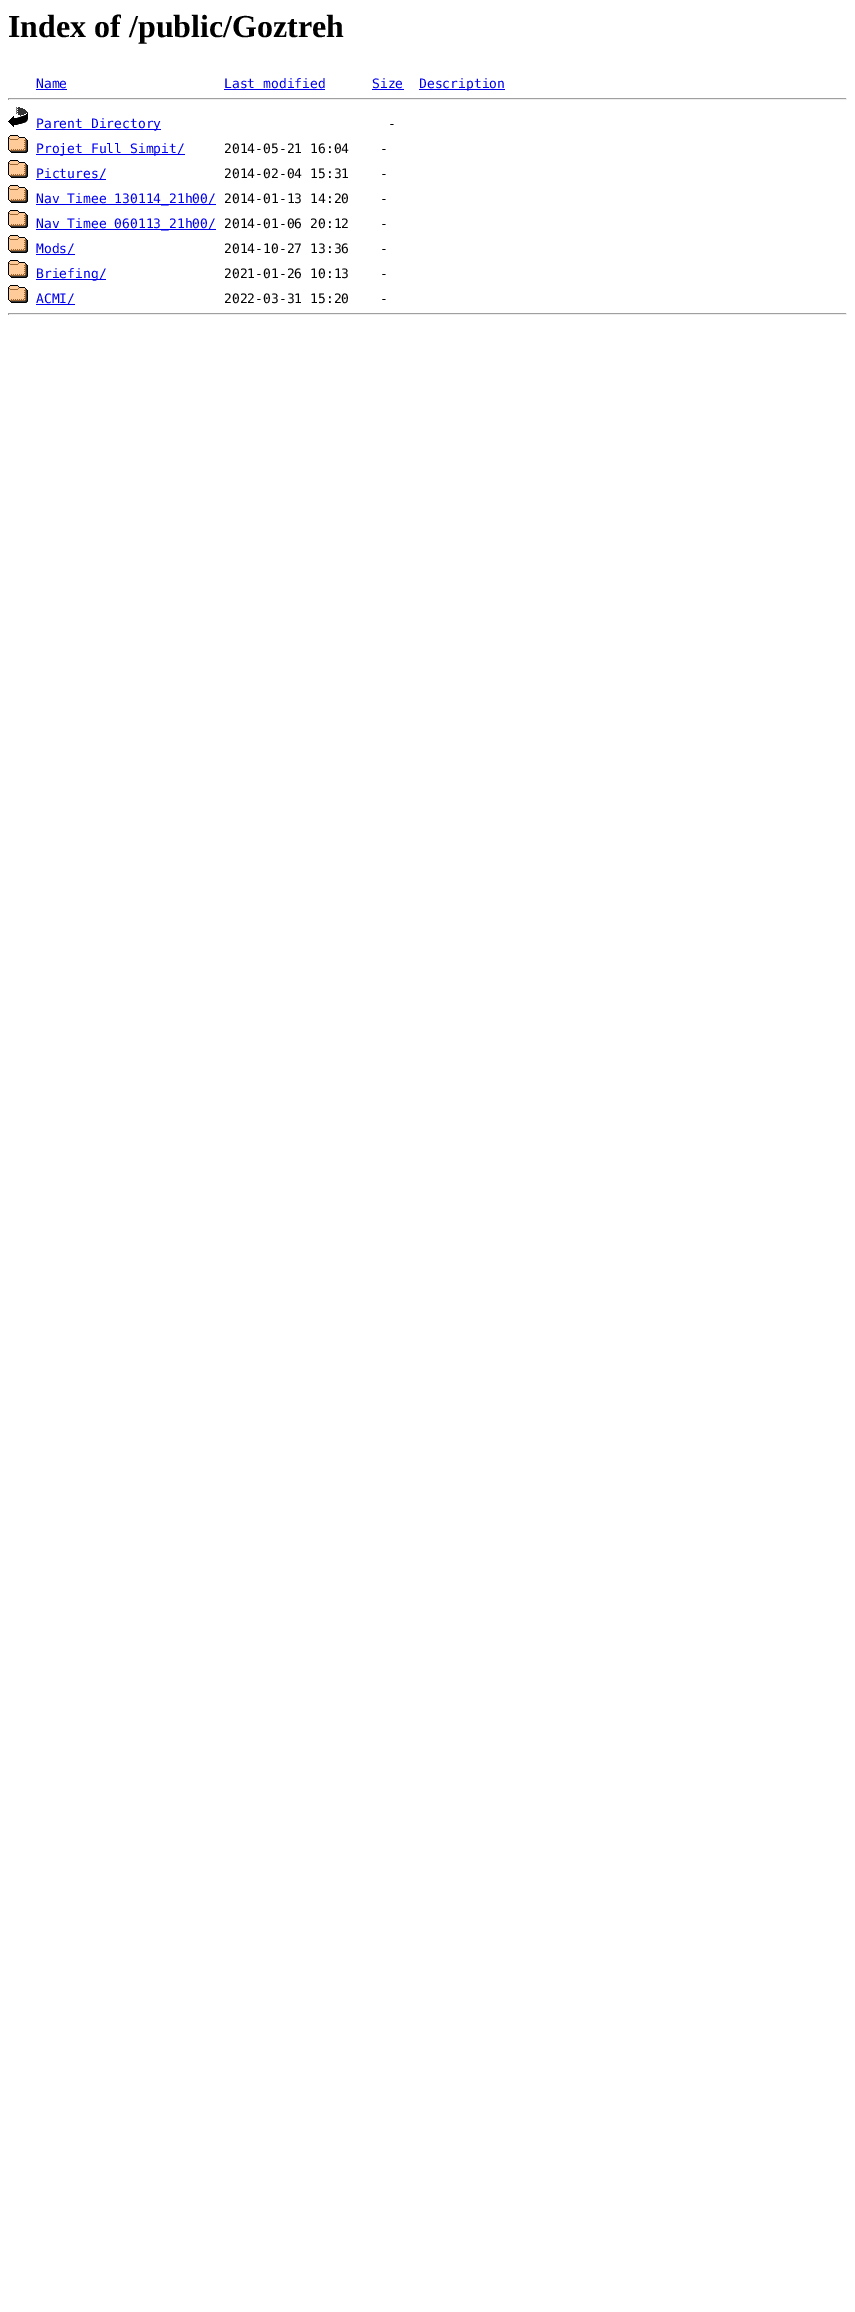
%!PS-Adobe-3.0
%%BoundingBox: 0 0 855 2312
%%LanguageLevel: 3
%%Pages: 1
%%EndComments
%%BeginProlog
/fn { [ exch dup neg 0 0 3 -1 roll 0 0 ] selectfont } def
/tx { moveto show } def
/bx { rectfill } def
/im { 5 dict begin { /h /w /y /x /name } { exch def } forall
  gsave x y translate w h scale
  w h 8 [w 0 0 h 0 0] name (r) file false 3 colorimage grestore end } def
%%EndProlog
%%BeginSetup
<< /PageSize [855 2312] >> setpagedevice
%%EndSetup
%%Page: 1 1
0 2312 translate 1 -1 scale
4 setmiterlimit
1 setgray
0 0 855 2312 bx
/LiberationSerif-Bold 32 fn
0 setgray
(Index of /public/Goztreh) 8 37 tx
/DejaVuSansMono-Regular 13 fn
0 0 0.933 setrgbcolor
(Name) 36 88 tx
36 89 31 1 bx
(Last modified) 224 88 tx
224 89 101 1 bx
(Size) 372 88 tx
372 89 32 1 bx
419 89 86 1 bx
(Description) 419 88 tx
0.624 setgray
8 98 839 1 bx
0.933 setgray
846 98 1 2 bx
8 99 839 1 bx
0.624 setgray
8 98 1 2 bx
(image0.raw) 8 107 20 20 im
0 0 0.933 setrgbcolor
36 129 125 1 bx
(Parent Directory) 36 128 tx
0 setgray
(-) 388 128 tx
(image1.raw) 8 135 20 18 im
0 0 0.933 setrgbcolor
36 154 149 1 bx
(Projet Full Simpit/) 36 153 tx
0 setgray
(2014-05-21 16:04    -) 224 153 tx
(image1.raw) 8 160 20 18 im
0 0 0.933 setrgbcolor
36 179 70 1 bx
(Pictures/) 36 178 tx
0 setgray
(2014-02-04 15:31    -) 224 178 tx
(image1.raw) 8 185 20 18 im
0 0 0.933 setrgbcolor
36 204 180 1 bx
(Nav Timee 130114_21h00/) 36 203 tx
0 setgray
(2014-01-13 14:20    -) 224 203 tx
(image1.raw) 8 210 20 18 im
0 0 0.933 setrgbcolor
36 229 180 1 bx
(Nav Timee 060113_21h00/) 36 228 tx
0 setgray
(2014-01-06 20:12    -) 224 228 tx
(image1.raw) 8 235 20 18 im
0 0 0.933 setrgbcolor
36 254 39 1 bx
(Mods/) 36 253 tx
0 setgray
(2014-10-27 13:36    -) 224 253 tx
(image1.raw) 8 260 20 18 im
0 0 0.933 setrgbcolor
36 279 70 1 bx
(Briefing/) 36 278 tx
0 setgray
(2021-01-26 10:13    -) 224 278 tx
(image1.raw) 8 285 20 18 im
0 0 0.933 setrgbcolor
36 304 39 1 bx
(ACMI/) 36 303 tx
0 setgray
(2022-03-31 15:20    -) 224 303 tx
0.624 setgray
8 313 839 1 bx
0.933 setgray
846 313 1 2 bx
8 314 839 1 bx
0.624 setgray
8 313 1 2 bx
showpage
%%EOF
